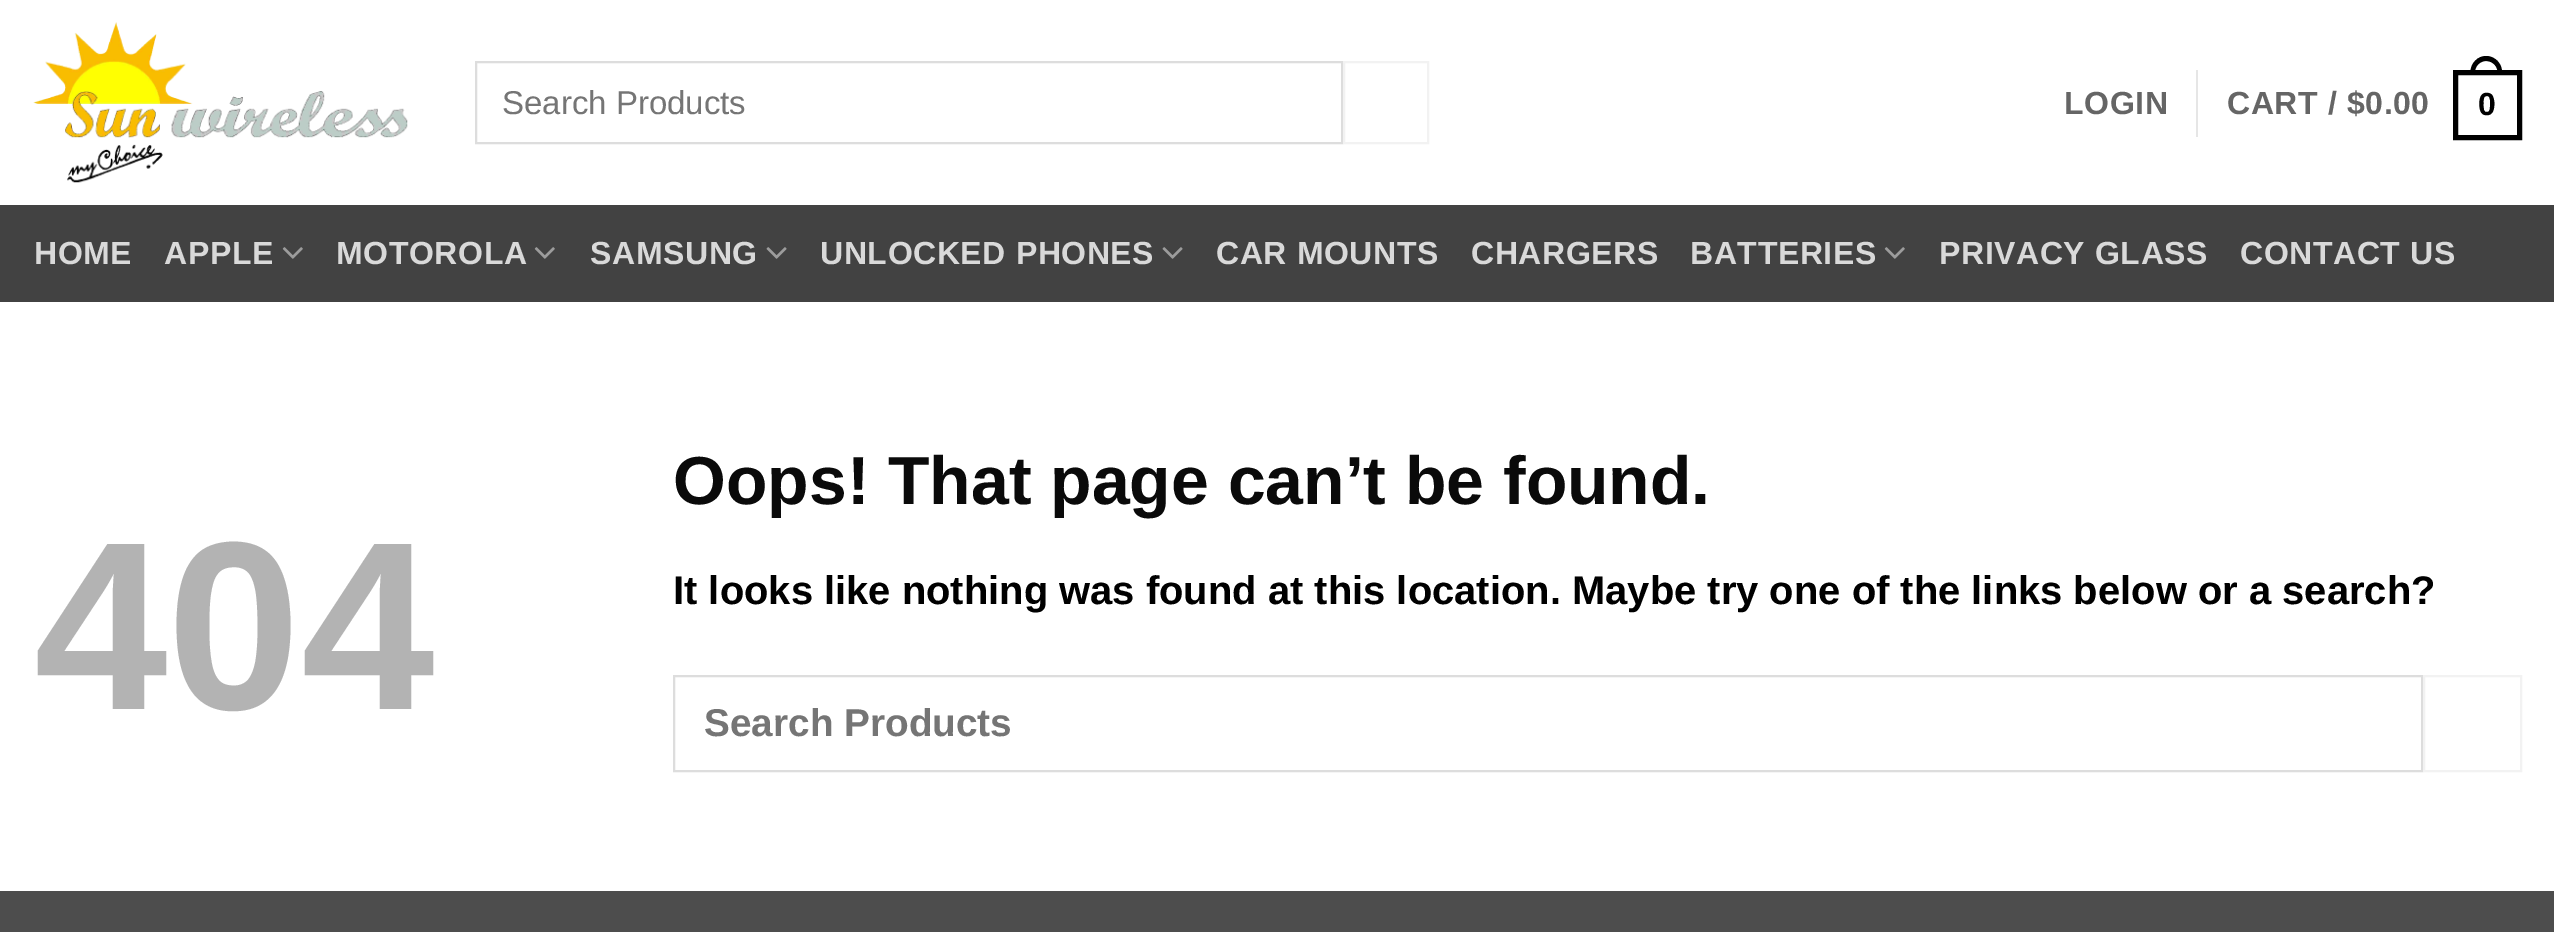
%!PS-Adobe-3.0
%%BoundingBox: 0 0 2554 932
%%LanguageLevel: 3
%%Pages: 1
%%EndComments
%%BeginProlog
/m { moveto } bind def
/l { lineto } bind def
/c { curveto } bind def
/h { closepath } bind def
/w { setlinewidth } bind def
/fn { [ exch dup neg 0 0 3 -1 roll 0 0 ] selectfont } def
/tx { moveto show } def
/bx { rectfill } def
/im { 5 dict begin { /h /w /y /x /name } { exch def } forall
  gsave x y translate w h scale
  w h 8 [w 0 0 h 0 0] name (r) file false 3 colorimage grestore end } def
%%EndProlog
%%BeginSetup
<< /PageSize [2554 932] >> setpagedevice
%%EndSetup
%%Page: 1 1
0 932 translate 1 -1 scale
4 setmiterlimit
1 setgray
0 0 2554 932 bx
(image0.raw) 33 22 375 161 im
0.867 setgray
2 w
476 62 866 81 rectstroke
/LiberationSans-Regular 33 fn
0.459 setgray
(Search Products) 502 114 tx
0.949 setgray
1344 62 84 81 rectstroke
/LiberationSans-Bold 32 fn
0.396 setgray
2064 114 m 0.6 0 (LOGIN) ashow
0.902 setgray
2196 70 2 67 bx
0.396 setgray
2227 114 m 0.6 0 (CART / $0.00) ashow
0 setgray
5 w
2455.5 72.5 64 65 rectstroke
2486 56 m 2495 56 2502 63.5 2502 72 c 2502 74 l 2470.5 74 l 2470.5 72 l 2470.5 63.5 2477.5 56 2486 56 c h 2486 61 m 2492.5 61 2497.5 66 2497.5 72 c 2497.5 74 l 2475 74 l 2475 72 l 2475 66 2480 61 2486 61 c h eofill
2478 115 m 0.6 0 (0) ashow
0.259 setgray
0 205 2554 97 bx
0.851 setgray
34 264 m 0.6 0 (HOME) ashow
164 264 m 0.6 0 (APPLE) ashow
(image1.raw) 282 247 21 12 im
336 264 m 0.6 0 (MOTOROLA) ashow
(image1.raw) 534 247 21 12 im
590 264 m 0.6 0 (SAMSUNG) ashow
(image2.raw) 766 247 21 12 im
820 264 m 0.6 0 (UNLOCKED PHONES) ashow
(image2.raw) 1162 247 21 12 im
1216 264 m 0.6 0 (CAR MOUNTS) ashow
1471 264 m 0.6 0 (CHARGERS) ashow
1690 264 m 0.6 0 (BATTERIES) ashow
(image1.raw) 1884 247 21 12 im
1939 264 m 0.6 0 (PRIVACY GLASS) ashow
2240 264 m 0.6 0 (CONTACT US) ashow
/LiberationSans-Bold 240 fn
0.702 setgray
(404) 34 709 tx
/LiberationSans-Bold 67.9 fn
0.039 setgray
(Oops! That page can’t be found.) 673 504 tx
/LiberationSans-Bold 39.95 fn
0 setgray
(It looks like nothing was found at this location. Maybe try one of the links below or a search?) 673 604 tx
0.867 setgray
2 w
674 676 1748 95 rectstroke
/LiberationSans-Bold 38.75 fn
0.459 setgray
(Search Products) 704 736 tx
0.949 setgray
2424 676 97 95 rectstroke
0.302 setgray
0 891 2554 41 bx
showpage
%%EOF
